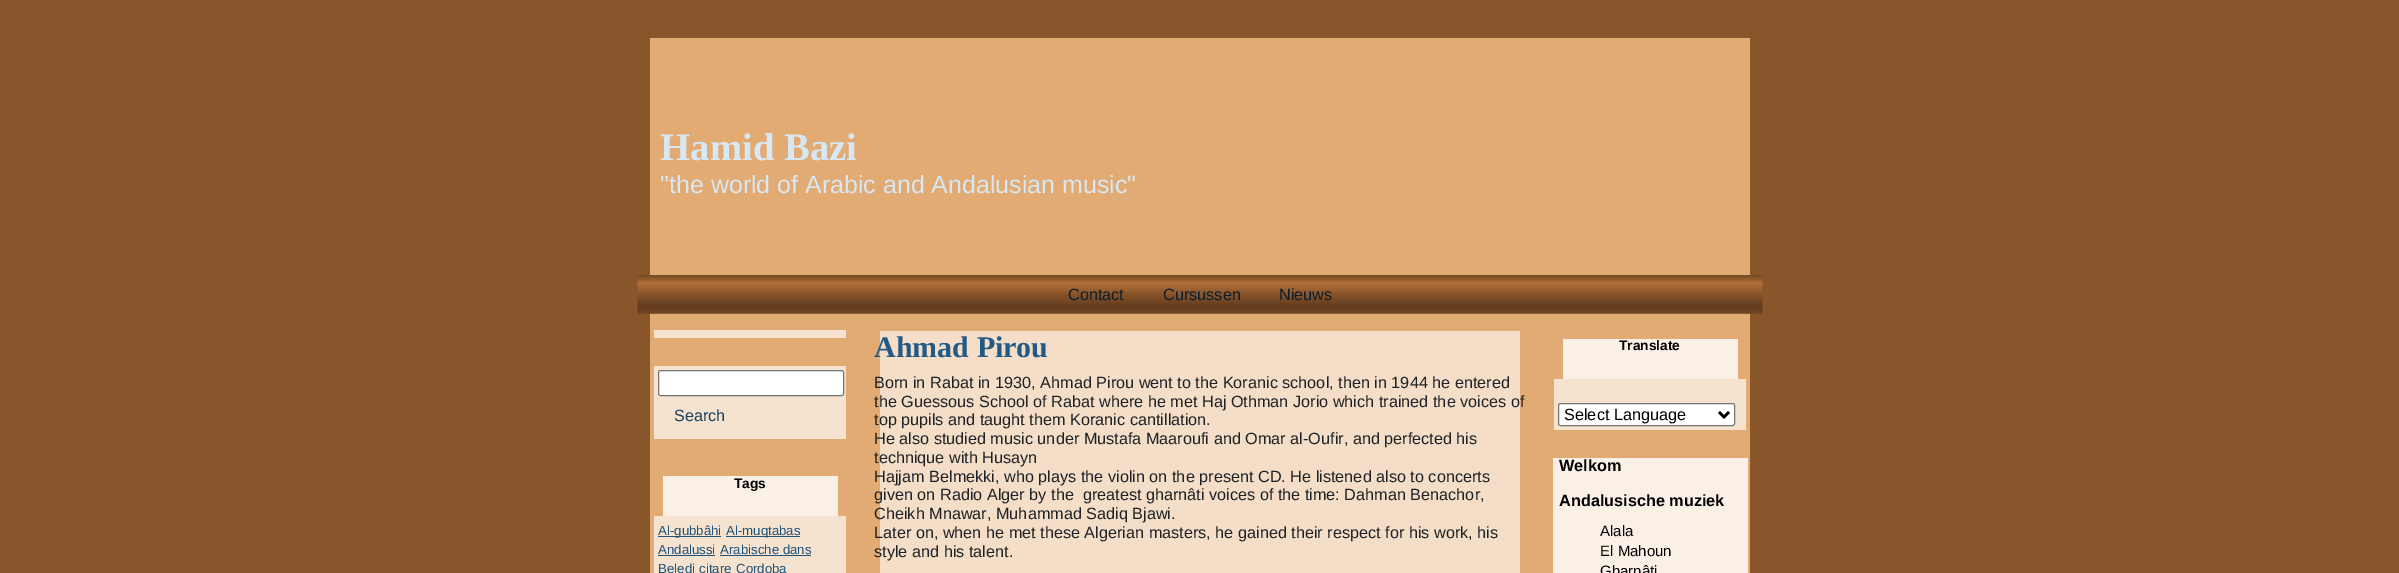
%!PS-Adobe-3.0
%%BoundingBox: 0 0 2399 573
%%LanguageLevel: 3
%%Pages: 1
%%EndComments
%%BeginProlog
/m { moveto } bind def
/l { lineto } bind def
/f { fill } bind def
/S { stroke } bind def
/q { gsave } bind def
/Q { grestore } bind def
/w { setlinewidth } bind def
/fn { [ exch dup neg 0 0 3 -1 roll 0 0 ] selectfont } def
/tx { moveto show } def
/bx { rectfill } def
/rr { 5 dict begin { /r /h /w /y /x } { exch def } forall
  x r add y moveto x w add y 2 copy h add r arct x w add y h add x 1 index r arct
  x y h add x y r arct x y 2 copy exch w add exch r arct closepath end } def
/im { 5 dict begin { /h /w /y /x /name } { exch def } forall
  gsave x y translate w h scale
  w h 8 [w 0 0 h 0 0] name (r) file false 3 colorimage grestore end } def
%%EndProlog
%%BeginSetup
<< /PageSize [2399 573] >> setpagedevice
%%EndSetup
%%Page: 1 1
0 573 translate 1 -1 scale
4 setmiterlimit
0.537 0.333 0.165 setrgbcolor
0 0 2399 573 bx
0.886 0.671 0.451 setrgbcolor
650 38 1100 535 bx
/LiberationSerif-Bold 38.75 fn
0.843 0.906 0.957 setrgbcolor
(Hamid Bazi) 660 160 tx
/LiberationSans-Regular 25 fn
("the world of Arabic and Andalusian music") 660 193 tx
(image0.raw) 637 275 1126 39 im
/LiberationSans-Regular 16.25 fn
0.047 0.118 0.173 setrgbcolor
(Contact) 1068 300 tx
(Cursussen) 1163 300 tx
(Nieuws) 1279 300 tx
0.961 0.89 0.816 setrgbcolor
654 330 192 8 bx
654 366 192 73 bx
1 setgray
658.5 370.5 185 25 2 rr q f Q
0.463 setgray
S
0.102 0.255 0.38 setrgbcolor
(Search) 674 421 tx
0.98 0.941 0.902 setrgbcolor
663 476 175 40 bx
/LiberationSans-Bold 13.75 fn
0 setgray
(Tags) 734 488 tx
0.961 0.89 0.816 setrgbcolor
654 516 192 57 bx
0.125 0.318 0.475 setrgbcolor
658 536 63 1 bx
/LiberationSans-Regular 13.25 fn
(Al-gubbâhi) 658 535 tx
726 536 74 1 bx
(Al-muqtabas) 726 535 tx
(Andalussi) 658 554 tx
658 555 57 1 bx
(Arabische dans) 720 554 tx
720 555 91 1 bx
(Beledi) 658 573 tx
(citare) 699 573 tx
(Cordoba) 736 573 tx
0.957 0.871 0.784 setrgbcolor
880 331 640 242 bx
/LiberationSerif-Bold 30 fn
0.137 0.349 0.522 setrgbcolor
(Ahmad Pirou) 874 357 tx
/LiberationSans-Regular 16.25 fn
0.118 0.129 0.145 setrgbcolor
(Born in Rabat in 1930, Ahmad Pirou went to the Koranic school, then in 1944 he entered) 874 388 tx
(the Guessous School of Rabat where he met Haj Othman Jorio which trained the voices of) 874 407 tx
(top pupils and taught them Koranic cantillation.) 874 425 tx
(He also studied music under Mustafa Maaroufi and Omar al-Oufir, and perfected his) 874 444 tx
(technique with Husayn) 874 463 tx
(Hajjam Belmekki, who plays the violin on the present CD. He listened also to concerts) 874 482 tx
(given on Radio Alger by the  greatest gharnâti voices of the time: Dahman Benachor,) 874 500 tx
(Cheikh Mnawar, Muhammad Sadiq Bjawi.) 874 519 tx
(Later on, when he met these Algerian masters, he gained their respect for his work, his) 874 538 tx
(style and his talent.) 874 557 tx
0.98 0.941 0.902 setrgbcolor
1563 339 175 40 bx
/LiberationSans-Bold 13.75 fn
0 setgray
(Translate) 1619 350 tx
0.961 0.89 0.816 setrgbcolor
1554 379 192 51 bx
1 setgray
1558.5 403.5 176 22 2 rr q f Q
0.463 setgray
S
0 setgray
2.5 w
1719 412 m 1724 417 l 1729 412 l S
/LiberationSans-Regular 16.25 fn
(Select Language) 1564 420 tx
0.98 0.941 0.902 setrgbcolor
1553 458 195 115 bx
/LiberationSans-Bold 16.25 fn
0 setgray
(Welkom) 1559 471 tx
(Andalusische muziek) 1559 506 tx
/LiberationSans-Regular 15 fn
(Alala) 1600 536 tx
(El Mahoun) 1600 556 tx
(Gharnâti) 1600 576 tx
showpage
%%EOF
